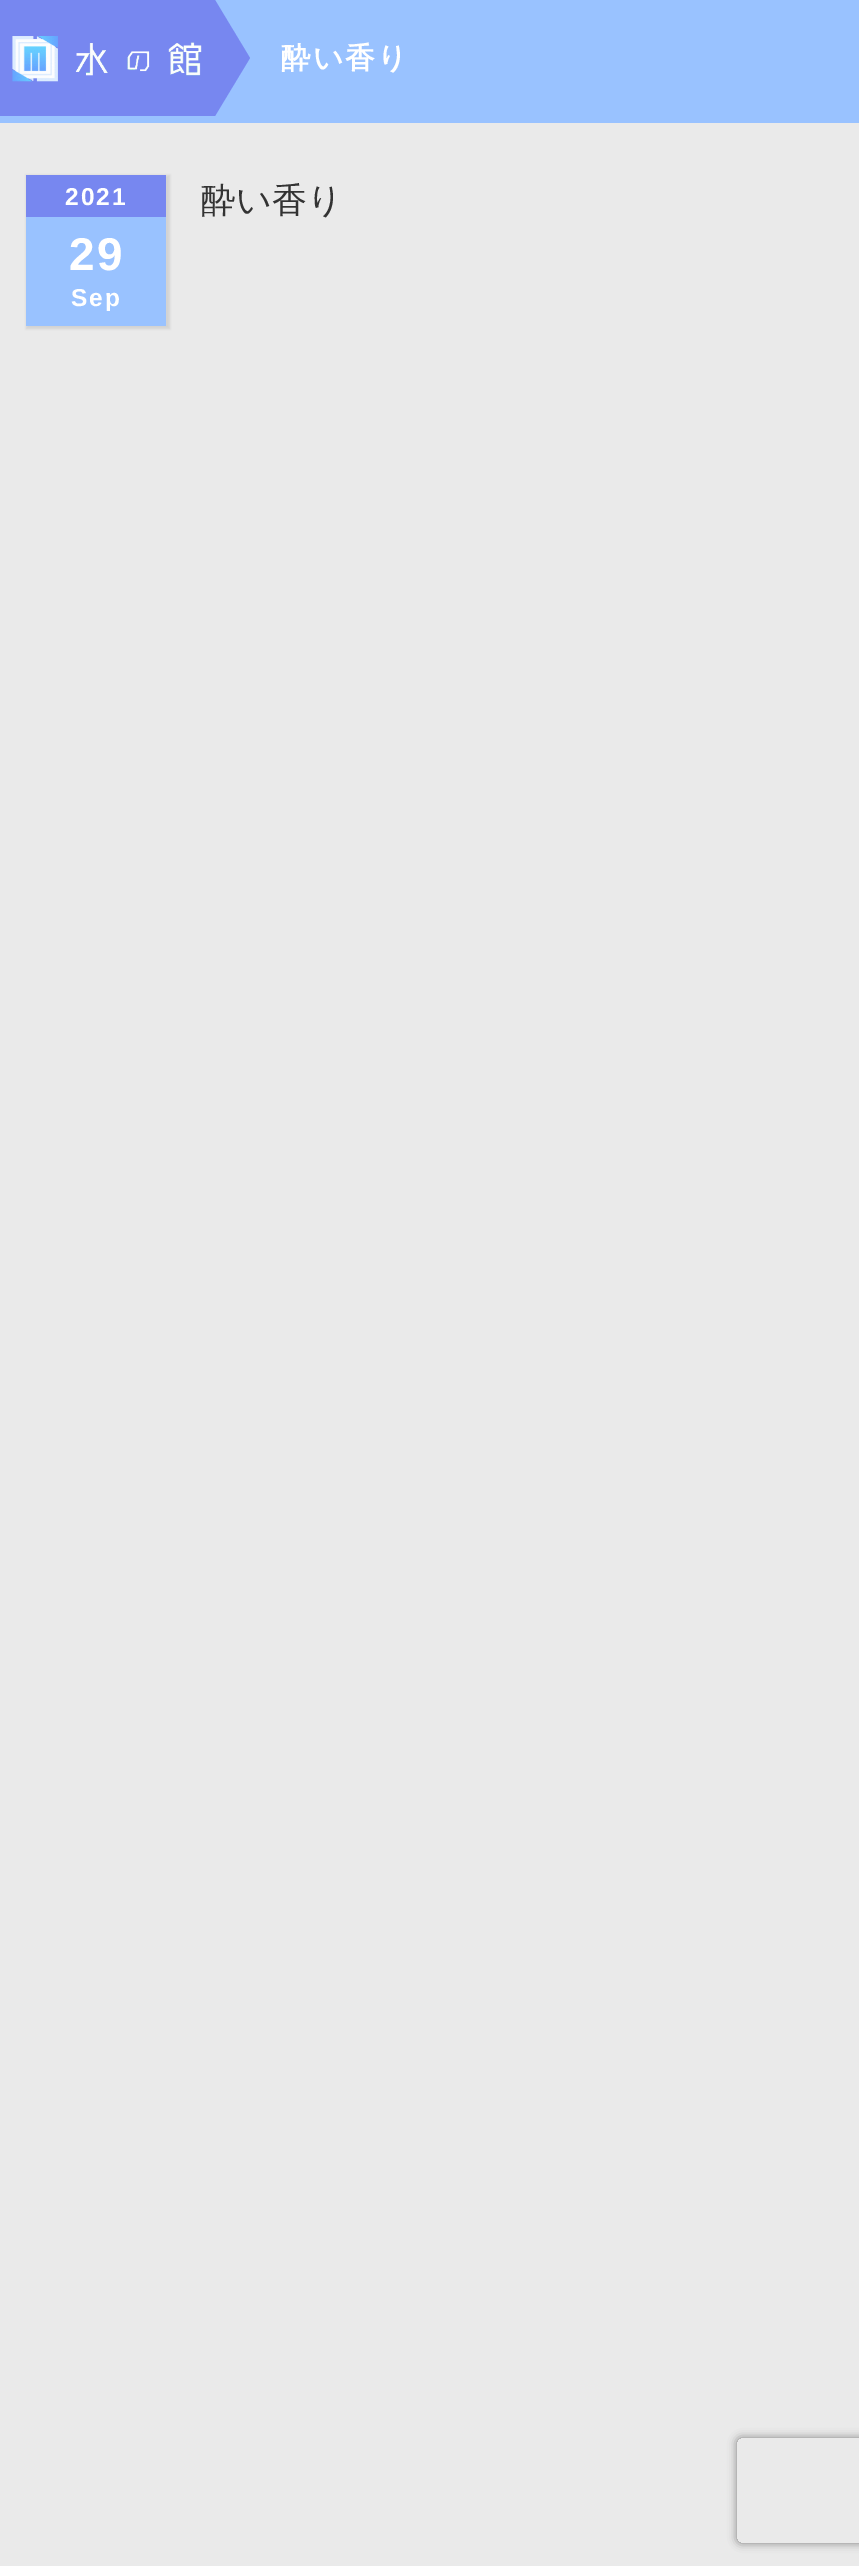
%!PS-Adobe-3.0
%%BoundingBox: 0 0 859 2566
%%LanguageLevel: 3
%%Pages: 1
%%EndComments
%%BeginProlog
/m { moveto } bind def
/l { lineto } bind def
/c { curveto } bind def
/h { closepath } bind def
/f { fill } bind def
/q { gsave } bind def
/Q { grestore } bind def
/fn { [ exch dup neg 0 0 3 -1 roll 0 0 ] selectfont } def
/tx { moveto show } def
/bx { rectfill } def
/al { dup .setfillconstantalpha .setstrokeconstantalpha } def
/rr { 5 dict begin { /r /h /w /y /x } { exch def } forall
  x r add y moveto x w add y 2 copy h add r arct x w add y h add x 1 index r arct
  x y h add x y r arct x y 2 copy exch w add exch r arct closepath end } def
/sh { 12 dict begin { /a /b /q /h /w /y /x } { exch def } forall gsave /was 0 def
  9 -2 -9 { dup b mul 4 div /e exch def 1 sub .425 mul 2.718 exch exp 1 add a .99 .min exch div /now exch def
    1 1 now sub 1 was sub div sub al /was now def
    w h .min e 2 mul add 0 gt { x e sub y e sub w e 2 mul add h e 2 mul add
      q e add b .6 mul add w h .min 2 div e add .min 0 .max rr fill } if } for grestore end } def
/im { 5 dict begin { /h /w /y /x /name } { exch def } forall
  gsave x y translate w h scale
  w h 8 [w 0 0 h 0 0] name (r) file false 3 colorimage grestore end } def
%%EndProlog
%%BeginSetup
<< /PageSize [859 2566] /PageUsesTransparency true >> setpagedevice
%%EndSetup
%%Page: 1 1
0 .pushpdf14devicefilter
0 2566 translate 1 -1 scale
4 setmiterlimit
0.918 setgray
0 0 859 2566 bx
0.6 0.761 1 setrgbcolor
0 0 859 123 bx
q
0 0 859 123 rectclip
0 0 m 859 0 l 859 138 l 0 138 l h 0 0 m 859 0 l 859 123 l 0 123 l h eoclip newpath
0 setgray
0 0 859 123 0 4.5 1 sh
Q
0.467 0.529 0.941 setrgbcolor
0 0 215 116 bx
(image0.raw) 12 36 190 46 im
215 116 m 215 0 l 250 58 l h f
/WenQuanYiZenHei-Bold 29.75 fn
1 setgray
281 68 m 2 0 (酔い香り) ashow
0 setgray
26 175 144 154 0 1 0.1 sh
0.6 0.761 1 setrgbcolor
26 217 140 109 bx
0.467 0.529 0.941 setrgbcolor
26 175 140 42 bx
/LiberationSans-Bold 24.5 fn
1 setgray
65 205 m 2 0 (2021) ashow
/LiberationSans-Bold 46 fn
69 270 m 2 0 (29) ashow
/LiberationSans-Bold 24.5 fn
71 306 m 2 0 (Sep) ashow
/WenQuanYiZenHei-Medium 35 fn
0.2 setgray
(酔い香り) 201 212 tx
q
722 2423 m 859 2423 l 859 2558 l 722 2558 l h 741 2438 m 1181 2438 l 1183 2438 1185 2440 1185 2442 c 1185 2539 l 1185 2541 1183 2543 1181 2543 c 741 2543 l 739 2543 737 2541 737 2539 c 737 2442 l 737 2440 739 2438 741 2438 c h eoclip newpath
0.502 setgray
737 2438 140 105 4 4.5 1 sh
Q
.poppdf14devicefilter showpage
%%EOF
